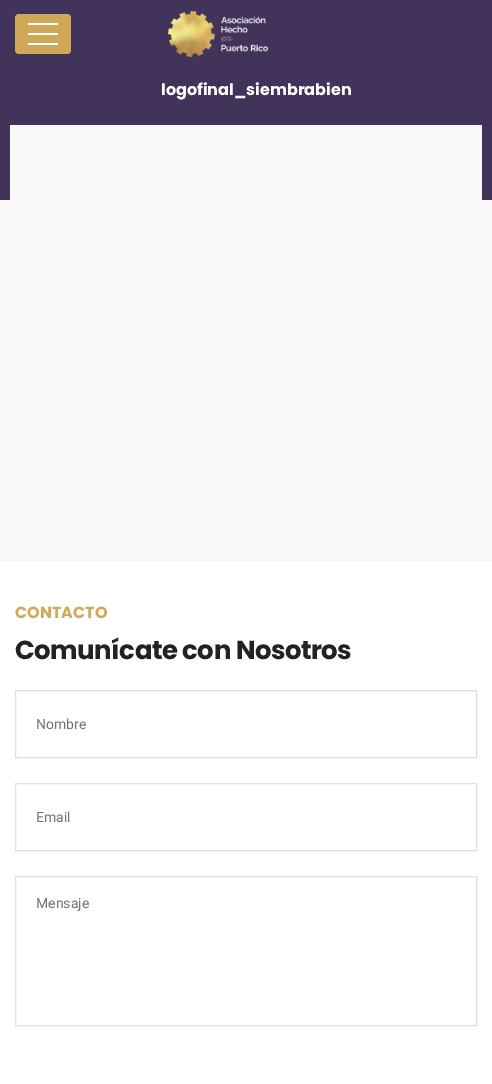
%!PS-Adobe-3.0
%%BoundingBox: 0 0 492 1084
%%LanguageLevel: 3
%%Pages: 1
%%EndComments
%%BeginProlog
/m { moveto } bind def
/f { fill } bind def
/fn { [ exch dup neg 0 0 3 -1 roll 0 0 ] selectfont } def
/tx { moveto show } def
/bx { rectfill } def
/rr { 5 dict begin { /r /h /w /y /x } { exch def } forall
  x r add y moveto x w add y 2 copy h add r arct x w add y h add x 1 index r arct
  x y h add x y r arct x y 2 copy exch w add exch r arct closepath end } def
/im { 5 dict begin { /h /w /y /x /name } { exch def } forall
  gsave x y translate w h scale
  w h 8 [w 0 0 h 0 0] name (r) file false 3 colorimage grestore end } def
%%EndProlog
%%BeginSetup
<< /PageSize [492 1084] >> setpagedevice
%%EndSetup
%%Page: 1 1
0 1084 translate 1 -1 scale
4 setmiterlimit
0.973 setgray
0 0 492 1084 bx
0.259 0.2 0.357 setrgbcolor
0 0 492 200 bx
0.812 0.663 0.345 setrgbcolor
15 14 56 40 4 rr f
1 setgray
28 23 30 2 bx
28 33 30 2 bx
28 43 30 2 bx
(image0.raw) 168 11 100 46 im
/Poppins-Bold 16 fn
(logofinal_siembrabien) 161 95 tx
0.973 setgray
10 125 472 75 bx
1 setgray
0 561 492 523 bx
0.812 0.663 0.345 setrgbcolor
(CONTACTO) 15 618 tx
/Poppins-Bold 26 fn
0.133 setgray
15 659 m -0.5 0 (Comunícate con Nosotros) ashow
0.875 setgray
15.5 690.5 461 67 rectstroke
/Roboto-Regular 14 fn
0.424 0.459 0.49 setrgbcolor
(Nombre) 36 729 tx
0.875 setgray
15.5 783.5 461 67 rectstroke
0.424 0.459 0.49 setrgbcolor
(Email) 36 822 tx
0.875 setgray
15.5 876.5 461 149 rectstroke
0.424 0.459 0.49 setrgbcolor
(Mensaje) 36 908 tx
showpage
%%EOF
